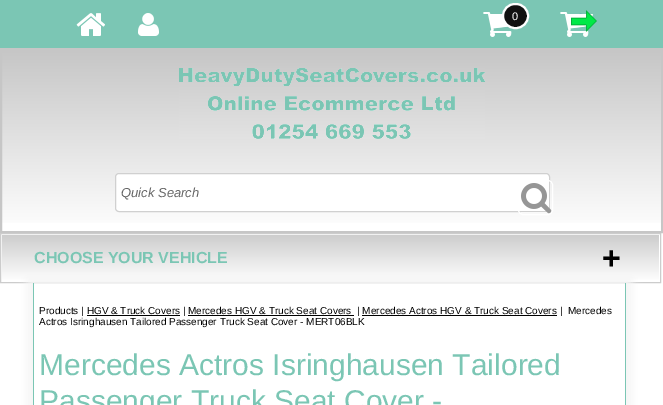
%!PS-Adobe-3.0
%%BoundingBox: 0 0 663 405
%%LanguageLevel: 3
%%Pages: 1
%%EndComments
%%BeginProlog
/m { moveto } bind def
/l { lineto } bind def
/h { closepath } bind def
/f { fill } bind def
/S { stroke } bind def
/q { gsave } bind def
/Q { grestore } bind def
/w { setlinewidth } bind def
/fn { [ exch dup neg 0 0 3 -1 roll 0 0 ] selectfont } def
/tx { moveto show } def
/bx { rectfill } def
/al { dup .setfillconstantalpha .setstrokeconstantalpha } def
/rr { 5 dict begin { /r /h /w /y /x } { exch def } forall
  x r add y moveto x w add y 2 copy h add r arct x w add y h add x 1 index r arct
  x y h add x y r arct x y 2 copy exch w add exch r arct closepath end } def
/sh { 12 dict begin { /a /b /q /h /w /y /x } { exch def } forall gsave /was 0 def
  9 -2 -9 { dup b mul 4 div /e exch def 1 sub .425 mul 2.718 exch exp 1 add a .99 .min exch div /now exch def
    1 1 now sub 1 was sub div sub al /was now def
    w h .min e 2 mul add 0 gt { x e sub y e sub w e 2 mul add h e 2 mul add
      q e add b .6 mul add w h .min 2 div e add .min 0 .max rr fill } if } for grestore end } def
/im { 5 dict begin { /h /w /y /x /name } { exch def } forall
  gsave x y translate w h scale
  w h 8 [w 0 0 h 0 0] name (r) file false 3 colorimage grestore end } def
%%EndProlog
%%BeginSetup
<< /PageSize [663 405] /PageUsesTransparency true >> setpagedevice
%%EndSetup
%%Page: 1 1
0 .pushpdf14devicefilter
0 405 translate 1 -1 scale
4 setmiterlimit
1 setgray
0 0 663 405 bx
q 0 0 m 663 0 l 663 159 l 0 159 l h clip newpath
<< /ShadingType 2 /ColorSpace /DeviceRGB /Coords [331 0 332 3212] /Extend [true true] /Function << /FunctionType 3 /Domain [0 1] /Functions [<< /FunctionType 2 /Domain [0 1] /C0 [0.482 0.776 0.706] /C1 [0.482 0.776 0.706] /N 1 >> << /FunctionType 2 /Domain [0 1] /C0 [0.482 0.776 0.706] /C1 [1 1 1] /N 1 >> << /FunctionType 2 /Domain [0 1] /C0 [1 1 1] /C1 [1 1 1] /N 1 >>] /Bounds [0.02 0.05] /Encode [0 1 0 1 0 1] >> >> shfill Q
(image0.raw) 76 13 29 23 im
(image1.raw) 138 13 21 23 im
(image2.raw) 483 12 29 25 im
0.067 setgray
503 4 25 24 12 rr q f Q
1 setgray
2 w
S
/LiberationSans-Regular 11 fn
(0) 512 20 tx
(image3.raw) 560 10 37 27 im
q 2 50 m 661 50 l 661 223 l 2 223 l h clip newpath
<< /ShadingType 2 /ColorSpace /DeviceRGB /Coords [332 50 332 231] /Extend [true true] /Function << /FunctionType 2 /Domain [0 1] /C0 [0.776 0.776 0.776] /C1 [1 1 1] /N 1 >> >> shfill Q
0.776 setgray
1 49 661 183 rectstroke
(image4.raw) 179 68 306 71 im
1 setgray
115.5 173.5 434 38 3.5 rr q f Q
0.816 setgray
1 w
S
/LiberationSans-Italic 13 fn
0.4 setgray
(Quick Search) 121 197 tx
(image5.raw) 521 183 31 31 im
1 setgray
518.5 180.5 34 34 4.5 rr S
q 2 235 m 659 235 l 659 280 l 2 280 l h clip newpath
<< /ShadingType 2 /ColorSpace /DeviceRGB /Coords [331 234 331 282] /Extend [true true] /Function << /FunctionType 2 /Domain [0 1] /C0 [0.8 0.8 0.8] /C1 [1 1 1] /N 1 >> >> shfill Q
0.8 setgray
0.5 233.5 660 49 rectstroke
/LiberationSans-Bold 16 fn
0.482 0.776 0.706 setrgbcolor
(CHOOSE YOUR VEHICLE) 34 263 tx
/LiberationSans-Bold 32 fn
0 setgray
(+) 602 269 tx
q
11 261 m 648 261 l 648 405 l 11 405 l h 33 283 m 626 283 l 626 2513 l 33 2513 l h eoclip newpath
0.957 setgray
27 277 605 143 0 5 1 sh
Q
0.482 0.776 0.706 setrgbcolor
625 283 1 122 bx
33 283 1 122 bx
/LiberationSans-Regular 10 fn
0 setgray
(Products | HGV & Truck Covers | Mercedes HGV & Truck Seat Covers) 39 314 tx
(| Mercedes Actros HGV & Truck Seat Covers |  Mercedes) 357 314 tx
87 315 93 1 bx
188 315 166 1 bx
362 315 195 1 bx
(Actros Isringhausen Tailored Passenger Truck Seat Cover - MERT06BLK) 39 325 tx
/LiberationSans-Regular 30 fn
0.482 0.776 0.706 setrgbcolor
(Mercedes Actros Isringhausen Tailored) 39 375 tx
(Passenger Truck Seat Cover -) 39 411 tx
.poppdf14devicefilter showpage
%%EOF
